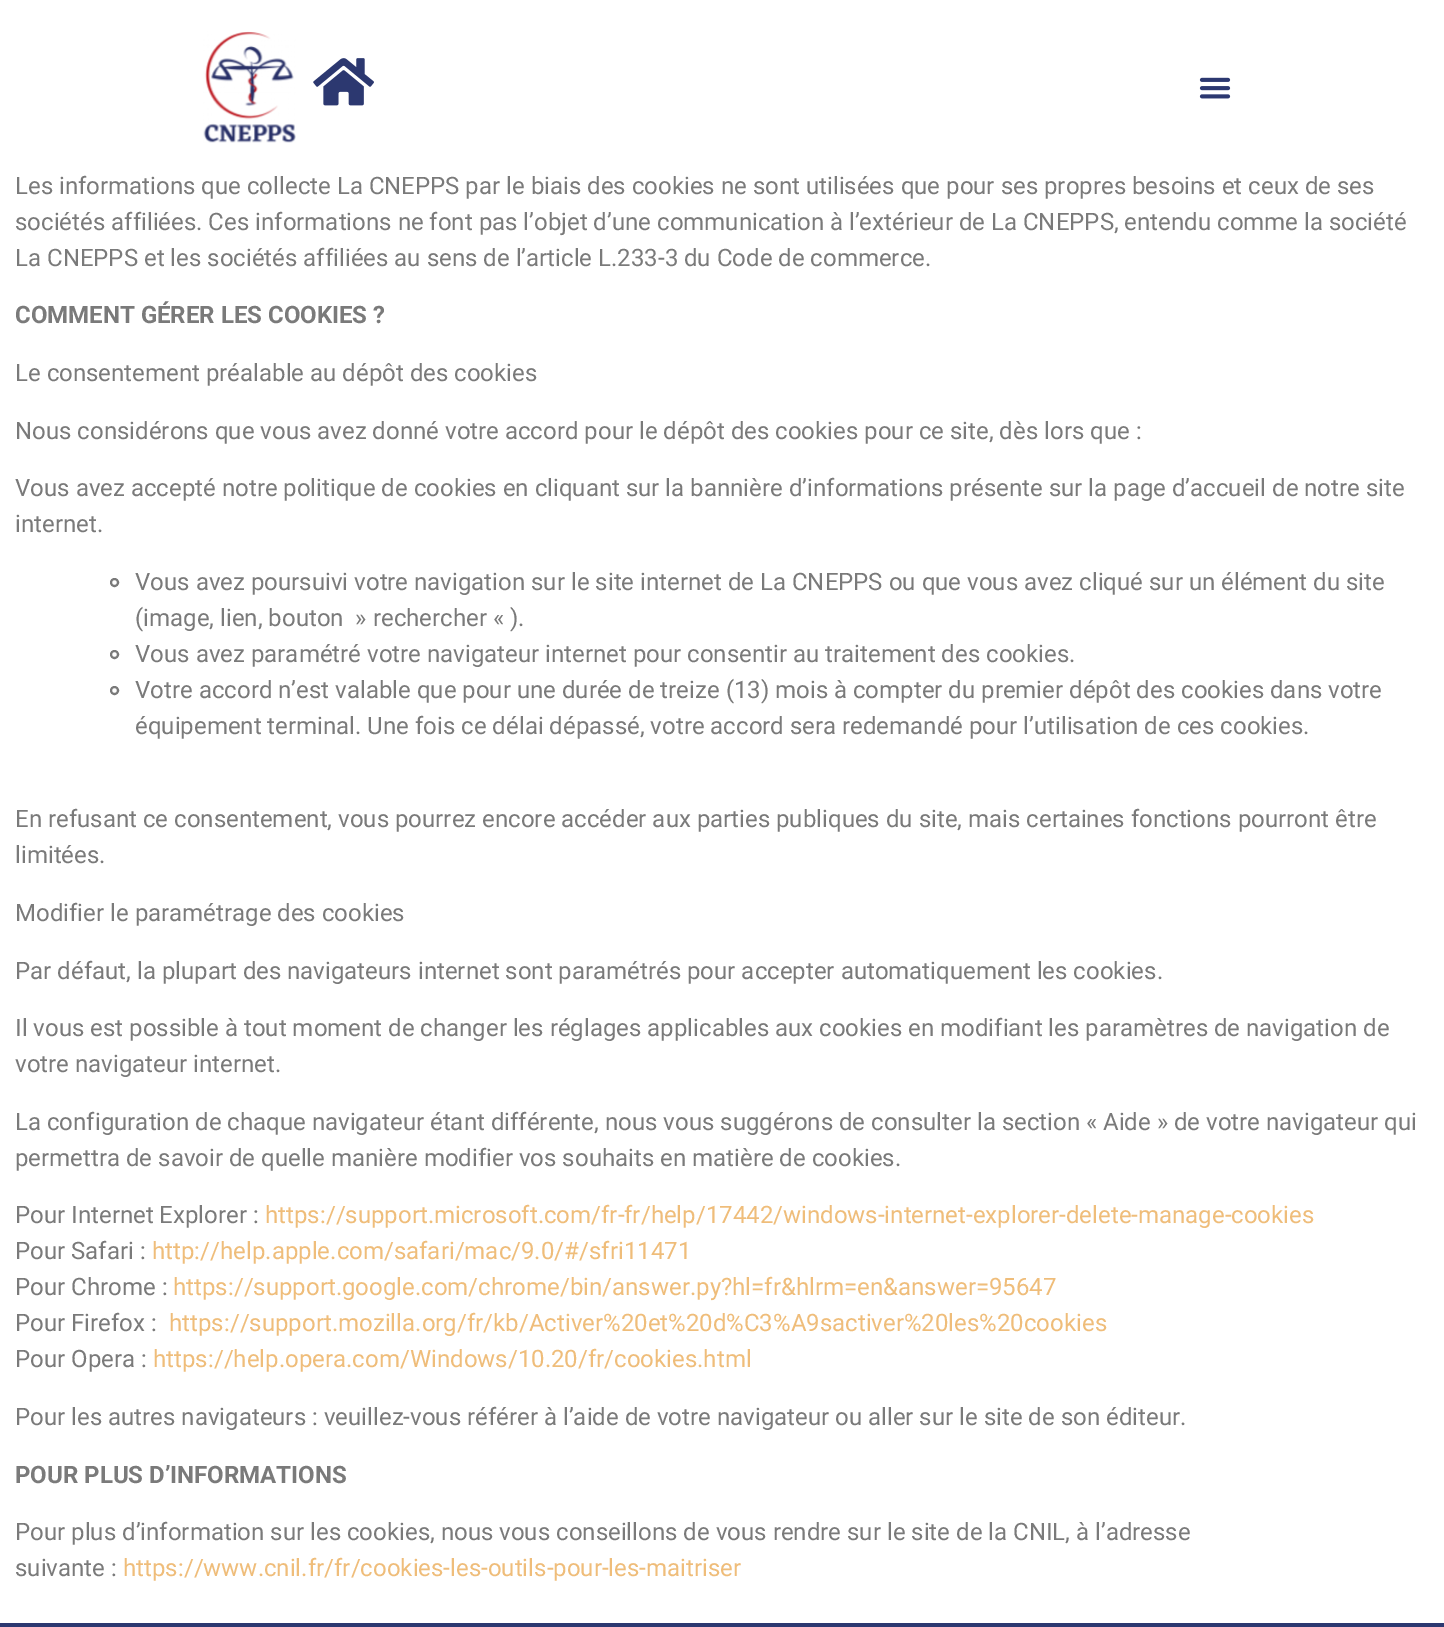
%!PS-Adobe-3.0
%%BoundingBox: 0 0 1444 1627
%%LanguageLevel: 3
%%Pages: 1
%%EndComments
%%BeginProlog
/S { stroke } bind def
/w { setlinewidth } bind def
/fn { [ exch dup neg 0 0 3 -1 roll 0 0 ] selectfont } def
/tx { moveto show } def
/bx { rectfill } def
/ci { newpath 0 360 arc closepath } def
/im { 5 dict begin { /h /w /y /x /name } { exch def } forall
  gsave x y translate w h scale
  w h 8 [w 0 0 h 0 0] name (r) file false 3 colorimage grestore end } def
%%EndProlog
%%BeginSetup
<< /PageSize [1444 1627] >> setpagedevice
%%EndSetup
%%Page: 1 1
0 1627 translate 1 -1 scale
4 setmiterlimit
1 setgray
0 0 1444 1627 bx
(image0.raw) 203 31 93 112 im
(image1.raw) 313 58 61 48 im
(image2.raw) 1199 77 32 22 im
/Roboto-Regular 24 fn
0.478 setgray
(Les informations que collecte La CNEPPS par le biais des cookies ne sont utilisées que pour ses propres besoins et ceux de ses) 15 194 tx
(sociétés affiliées. Ces informations ne font pas l’objet d’une communication à l’extérieur de La CNEPPS, entendu comme la société) 15 230 tx
(La CNEPPS et les sociétés affiliées au sens de l’article L.233-3 du Code de commerce.) 15 266 tx
/Roboto-Bold 24 fn
(COMMENT GÉRER LES COOKIES ?) 15 323 tx
/Roboto-Regular 24 fn
(Le consentement préalable au dépôt des cookies) 15 381 tx
(Nous considérons que vous avez donné votre accord pour le dépôt des cookies pour ce site, dès lors que :) 15 439 tx
(Vous avez accepté notre politique de cookies en cliquant sur la bannière d’informations présente sur la page d’accueil de notre site) 15 496 tx
(internet.) 15 532 tx
2 w
114.5 582.5 3.5 ci S
(Vous avez poursuivi votre navigation sur le site internet de La CNEPPS ou que vous avez cliqué sur un élément du site) 135 590 tx
(\(image, lien, bouton  » rechercher « \).) 135 626 tx
114.5 654.5 3.5 ci S
(Vous avez paramétré votre navigateur internet pour consentir au traitement des cookies.) 135 662 tx
114.5 690.5 3.5 ci S
(Votre accord n’est valable que pour une durée de treize \(13\) mois à compter du premier dépôt des cookies dans votre) 135 698 tx
(équipement terminal. Une fois ce délai dépassé, votre accord sera redemandé pour l’utilisation de ces cookies.) 135 734 tx
(En refusant ce consentement, vous pourrez encore accéder aux parties publiques du site, mais certaines fonctions pourront être) 15 827 tx
(limitées.) 15 863 tx
(Modifier le paramétrage des cookies) 15 921 tx
(Par défaut, la plupart des navigateurs internet sont paramétrés pour accepter automatiquement les cookies.) 15 979 tx
(Il vous est possible à tout moment de changer les réglages applicables aux cookies en modifiant les paramètres de navigation de) 15 1036 tx
(votre navigateur internet.) 15 1072 tx
(La configuration de chaque navigateur étant différente, nous vous suggérons de consulter la section « Aide » de votre navigateur qui) 15 1130 tx
(permettra de savoir de quelle manière modifier vos souhaits en matière de cookies.) 15 1166 tx
(Pour Internet Explorer :) 15 1223 tx
0.937 0.741 0.478 setrgbcolor
(https://support.microsoft.com/fr-fr/help/17442/windows-internet-explorer-delete-manage-cookies) 265 1223 tx
0.478 setgray
(Pour Safari :) 15 1259 tx
0.937 0.741 0.478 setrgbcolor
(http://help.apple.com/safari/mac/9.0/#/sfri11471) 152 1259 tx
0.478 setgray
(Pour Chrome :) 15 1295 tx
0.937 0.741 0.478 setrgbcolor
(https://support.google.com/chrome/bin/answer.py?hl=fr&hlrm=en&answer=95647) 173 1295 tx
0.478 setgray
(Pour Firefox :) 15 1331 tx
0.937 0.741 0.478 setrgbcolor
(https://support.mozilla.org/fr/kb/Activer%20et%20d%C3%A9sactiver%20les%20cookies) 169 1331 tx
0.478 setgray
(Pour Opera :) 15 1367 tx
0.937 0.741 0.478 setrgbcolor
(https://help.opera.com/Windows/10.20/fr/cookies.html) 153 1367 tx
0.478 setgray
(Pour les autres navigateurs : veuillez-vous référer à l’aide de votre navigateur ou aller sur le site de son éditeur.) 15 1425 tx
/Roboto-Bold 24 fn
(POUR PLUS D’INFORMATIONS) 15 1483 tx
/Roboto-Regular 24 fn
(Pour plus d’information sur les cookies, nous vous conseillons de vous rendre sur le site de la CNIL, à l’adresse) 15 1540 tx
(suivante :) 15 1576 tx
0.937 0.741 0.478 setrgbcolor
(https://www.cnil.fr/fr/cookies-les-outils-pour-les-maitriser) 123 1576 tx
0.173 0.22 0.439 setrgbcolor
0 1623 1444 4 bx
showpage
%%EOF
